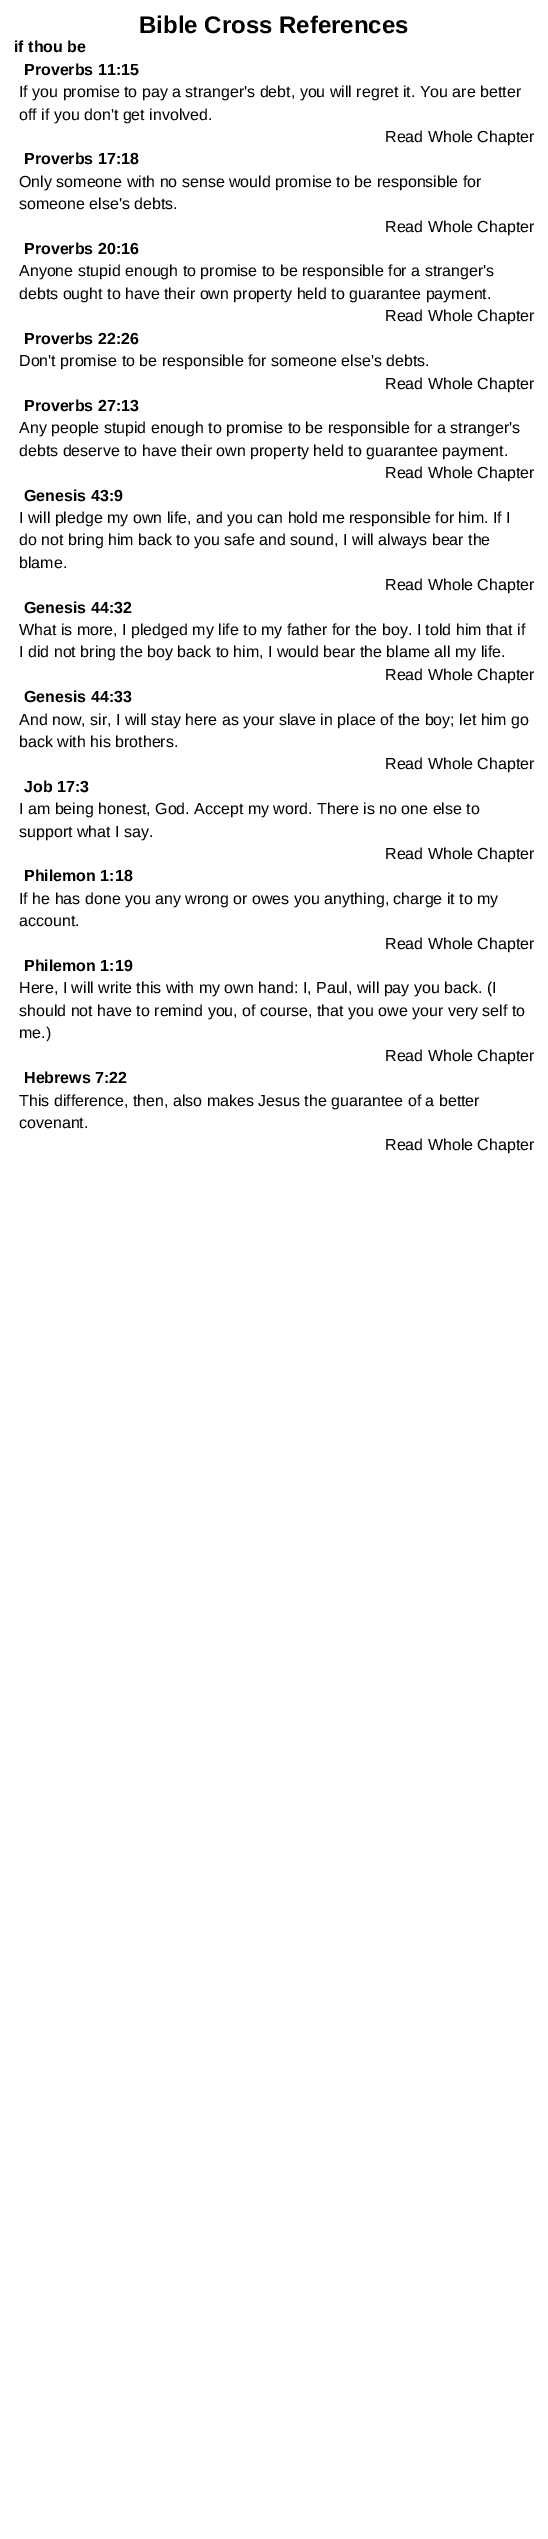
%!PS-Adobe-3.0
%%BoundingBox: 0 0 548 2539
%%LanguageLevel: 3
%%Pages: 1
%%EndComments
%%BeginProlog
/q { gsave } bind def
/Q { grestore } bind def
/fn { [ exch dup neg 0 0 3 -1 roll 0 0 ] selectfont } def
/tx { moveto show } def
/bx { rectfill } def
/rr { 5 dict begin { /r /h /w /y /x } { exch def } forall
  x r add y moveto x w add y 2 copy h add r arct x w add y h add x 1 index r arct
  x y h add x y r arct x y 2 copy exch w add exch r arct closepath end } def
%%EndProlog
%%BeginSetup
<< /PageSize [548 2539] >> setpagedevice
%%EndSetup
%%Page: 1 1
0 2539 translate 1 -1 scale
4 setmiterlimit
1 setgray
0 0 548 2539 bx
/LiberationSans-Bold 24 fn
0 setgray
(Bible Cross References) 139 33 tx
/LiberationSans-Bold 16 fn
(if thou be) 14 52 tx
(Proverbs 11:15) 24 75 tx
/LiberationSans-Regular 16 fn
(If you promise to pay a stranger's debt, you will regret it. You are better) 19 97 tx
(off if you don't get involved.) 19 120 tx
(Read Whole Chapter) 385 142 tx
/LiberationSans-Bold 16 fn
(Proverbs 17:18) 24 164 tx
/LiberationSans-Regular 16 fn
(Only someone with no sense would promise to be responsible for) 19 187 tx
(someone else's debts.) 19 209 tx
(Read Whole Chapter) 385 232 tx
/LiberationSans-Bold 16 fn
(Proverbs 20:16) 24 254 tx
/LiberationSans-Regular 16 fn
(Anyone stupid enough to promise to be responsible for a stranger's) 19 276 tx
(debts ought to have their own property held to guarantee payment.) 19 299 tx
(Read Whole Chapter) 385 321 tx
/LiberationSans-Bold 16 fn
(Proverbs 22:26) 24 344 tx
/LiberationSans-Regular 16 fn
(Don't promise to be responsible for someone else's debts.) 19 366 tx
(Read Whole Chapter) 385 389 tx
/LiberationSans-Bold 16 fn
(Proverbs 27:13) 24 411 tx
/LiberationSans-Regular 16 fn
(Any people stupid enough to promise to be responsible for a stranger's) 19 433 tx
(debts deserve to have their own property held to guarantee payment.) 19 456 tx
(Read Whole Chapter) 385 478 tx
/LiberationSans-Bold 16 fn
(Genesis 43:9) 24 501 tx
/LiberationSans-Regular 16 fn
(I will pledge my own life, and you can hold me responsible for him. If I) 19 523 tx
(do not bring him back to you safe and sound, I will always bear the) 19 545 tx
(blame.) 19 568 tx
(Read Whole Chapter) 385 590 tx
/LiberationSans-Bold 16 fn
(Genesis 44:32) 24 613 tx
q
19 619 510 45 10 rr clip newpath
/LiberationSans-Regular 16 fn
(What is more, I pledged my life to my father for the boy. I told him that if) 19 635 tx
Q
/LiberationSans-Regular 16 fn
(I did not bring the boy back to him, I would bear the blame all my life.) 19 657 tx
(Read Whole Chapter) 385 680 tx
/LiberationSans-Bold 16 fn
(Genesis 44:33) 24 702 tx
/LiberationSans-Regular 16 fn
(And now, sir, I will stay here as your slave in place of the boy; let him go) 19 725 tx
(back with his brothers.) 19 747 tx
(Read Whole Chapter) 385 769 tx
/LiberationSans-Bold 16 fn
(Job 17:3) 24 792 tx
/LiberationSans-Regular 16 fn
(I am being honest, God. Accept my word. There is no one else to) 19 814 tx
(support what I say.) 19 837 tx
(Read Whole Chapter) 385 859 tx
/LiberationSans-Bold 16 fn
(Philemon 1:18) 24 881 tx
/LiberationSans-Regular 16 fn
(If he has done you any wrong or owes you anything, charge it to my) 19 904 tx
(account.) 19 926 tx
(Read Whole Chapter) 385 949 tx
/LiberationSans-Bold 16 fn
(Philemon 1:19) 24 971 tx
/LiberationSans-Regular 16 fn
(Here, I will write this with my own hand: I, Paul, will pay you back. \(I) 19 993 tx
(should not have to remind you, of course, that you owe your very self to) 19 1016 tx
(me.\)) 19 1038 tx
(Read Whole Chapter) 385 1061 tx
/LiberationSans-Bold 16 fn
(Hebrews 7:22) 24 1083 tx
q
19 1090 510 44 10 rr clip newpath
/LiberationSans-Regular 16 fn
(This difference, then, also makes Jesus the guarantee of a better) 19 1106 tx
Q
/LiberationSans-Regular 16 fn
(covenant.) 19 1128 tx
(Read Whole Chapter) 385 1150 tx
showpage
%%EOF
